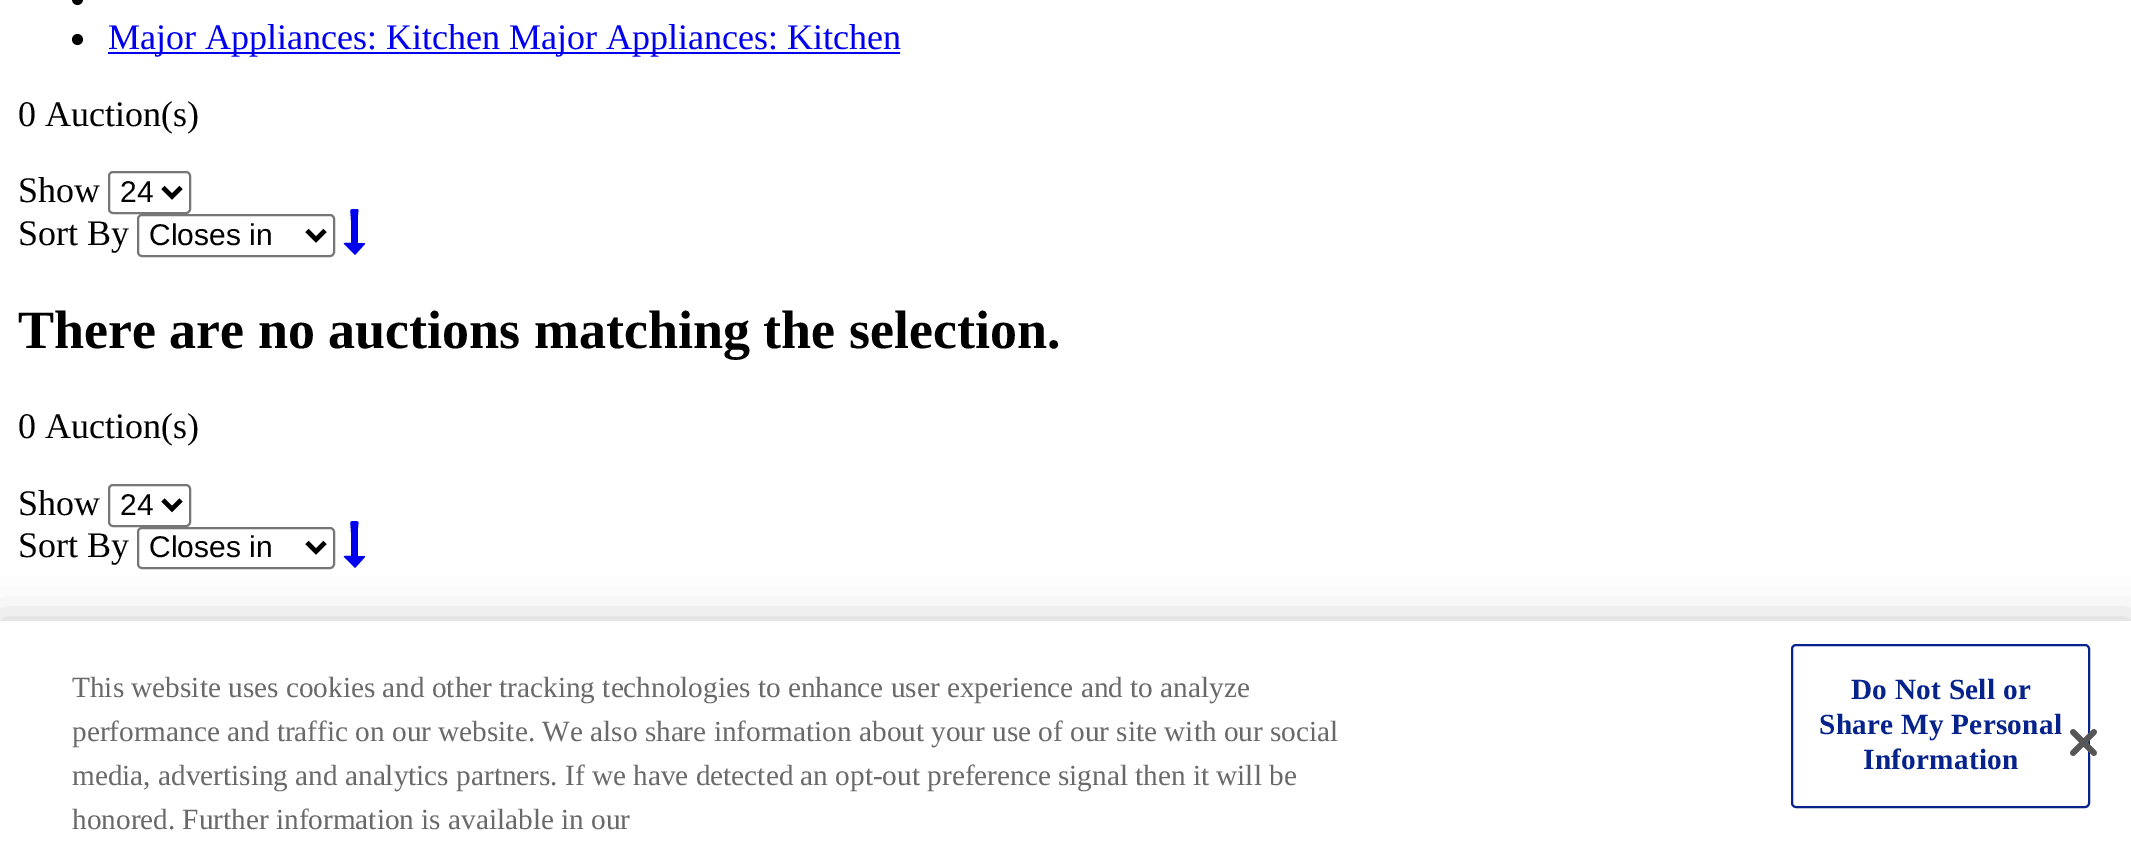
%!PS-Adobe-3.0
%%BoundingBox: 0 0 2131 863
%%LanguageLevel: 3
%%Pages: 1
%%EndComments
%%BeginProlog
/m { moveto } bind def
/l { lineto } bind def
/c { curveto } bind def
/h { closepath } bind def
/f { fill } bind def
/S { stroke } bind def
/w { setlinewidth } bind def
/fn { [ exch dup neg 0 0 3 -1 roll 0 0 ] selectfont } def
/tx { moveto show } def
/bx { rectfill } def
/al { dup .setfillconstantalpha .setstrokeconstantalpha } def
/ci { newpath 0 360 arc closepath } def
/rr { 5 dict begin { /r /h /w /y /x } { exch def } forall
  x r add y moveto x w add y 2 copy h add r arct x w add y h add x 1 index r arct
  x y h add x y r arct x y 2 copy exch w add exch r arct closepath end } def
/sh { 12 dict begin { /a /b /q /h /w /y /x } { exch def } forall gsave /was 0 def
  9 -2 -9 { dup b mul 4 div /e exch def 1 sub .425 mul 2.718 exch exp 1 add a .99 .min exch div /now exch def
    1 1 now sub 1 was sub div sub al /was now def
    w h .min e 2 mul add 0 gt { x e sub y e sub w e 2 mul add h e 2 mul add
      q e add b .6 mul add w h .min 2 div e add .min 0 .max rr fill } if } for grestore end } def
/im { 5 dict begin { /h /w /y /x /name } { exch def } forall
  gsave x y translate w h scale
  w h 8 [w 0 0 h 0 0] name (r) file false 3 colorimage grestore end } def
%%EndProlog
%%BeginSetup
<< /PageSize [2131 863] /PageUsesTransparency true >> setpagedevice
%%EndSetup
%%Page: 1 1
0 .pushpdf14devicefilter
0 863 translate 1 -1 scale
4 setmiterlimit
1 setgray
0 0 2131 863 bx
0 setgray
77.5 -0.5 5.5 ci f
77.5 39.5 5.5 ci f
0 0 0.933 setrgbcolor
108 52 792 2 bx
/LiberationSerif-Regular 36 fn
(Major Appliances: Kitchen Major Appliances: Kitchen) 108 49 tx
0 setgray
(0 Auction\(s\)) 18 126 tx
(Show) 18 202 tx
0.463 setgray
2 w
109 172 81 41 4 rr S
0 setgray
4.5 w
163 187.5 m 172 196.5 l 181 187.5 l S
/LiberationSans-Regular 30 fn
(24) 120 202 tx
/LiberationSerif-Regular 36 fn
(Sort By) 18 245 tx
0.463 setgray
2 w
138 215 196 41 4 rr S
0 setgray
4.5 w
307 230.5 m 316 239.5 l 325 230.5 l S
/LiberationSans-Regular 30 fn
(Closes in) 149 245 tx
0 0 0.933 setrgbcolor
364 243 m 365 243 365 244 365 244 c 355 255 l 344 244 l 343 242 350 243 351 243 c 351 221 l 351 210 348 209 355 209 c 360 209 358 210 358 215 c 358 243 l h f
/LiberationSerif-Bold 54 fn
0 setgray
(There are no auctions matching the selection.) 18 348 tx
/LiberationSerif-Regular 36 fn
(0 Auction\(s\)) 18 438 tx
(Show) 18 515 tx
0.463 setgray
2 w
109 485 81 41 4 rr S
0 setgray
4.5 w
163 500 m 172 509 l 181 500 l S
/LiberationSans-Regular 30 fn
(24) 120 515 tx
/LiberationSerif-Regular 36 fn
(Sort By) 18 557 tx
0.463 setgray
2 w
138 528 196 40 4 rr S
0 setgray
4.5 w
307 542.5 m 316 551.5 l 325 542.5 l S
/LiberationSans-Regular 30 fn
(Closes in) 149 557 tx
0 0 0.933 setrgbcolor
364 556 m 365 556 365 557 365 557 c 355 568 l 344 557 l 343 555 350 556 351 556 c 351 533 l 351 522 348 521 355 521 c 360 521 358 523 358 528 c 358 556 l h f
0 setgray
0 621 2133 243 0 20 0.2 sh
1 setgray
0 621 2131 242 bx
/LiberationSerif-Regular 29.25 fn
0.412 setgray
(This website uses cookies and other tracking technologies to enhance user experience and to analyze) 72 697 tx
(performance and traffic on our website. We also share information about your use of our site with our social) 72 741 tx
(media, advertising and analytics partners. If we have detected an opt-out preference signal then it will be) 72 785 tx
(honored. Further information is available in our) 72 829 tx
0.024 0.137 0.545 setrgbcolor
2 w
1792 645 297 162 4 rr S
/LiberationSerif-Bold 29.25 fn
1851 699 m 0.25 0 (Do Not Sell or) ashow
1819 734 m 0.25 0 (Share My Personal) ashow
1863 769 m 0.25 0 (Information) ashow
(image0.raw) 2070 729 27 27 im
.poppdf14devicefilter showpage
%%EOF
